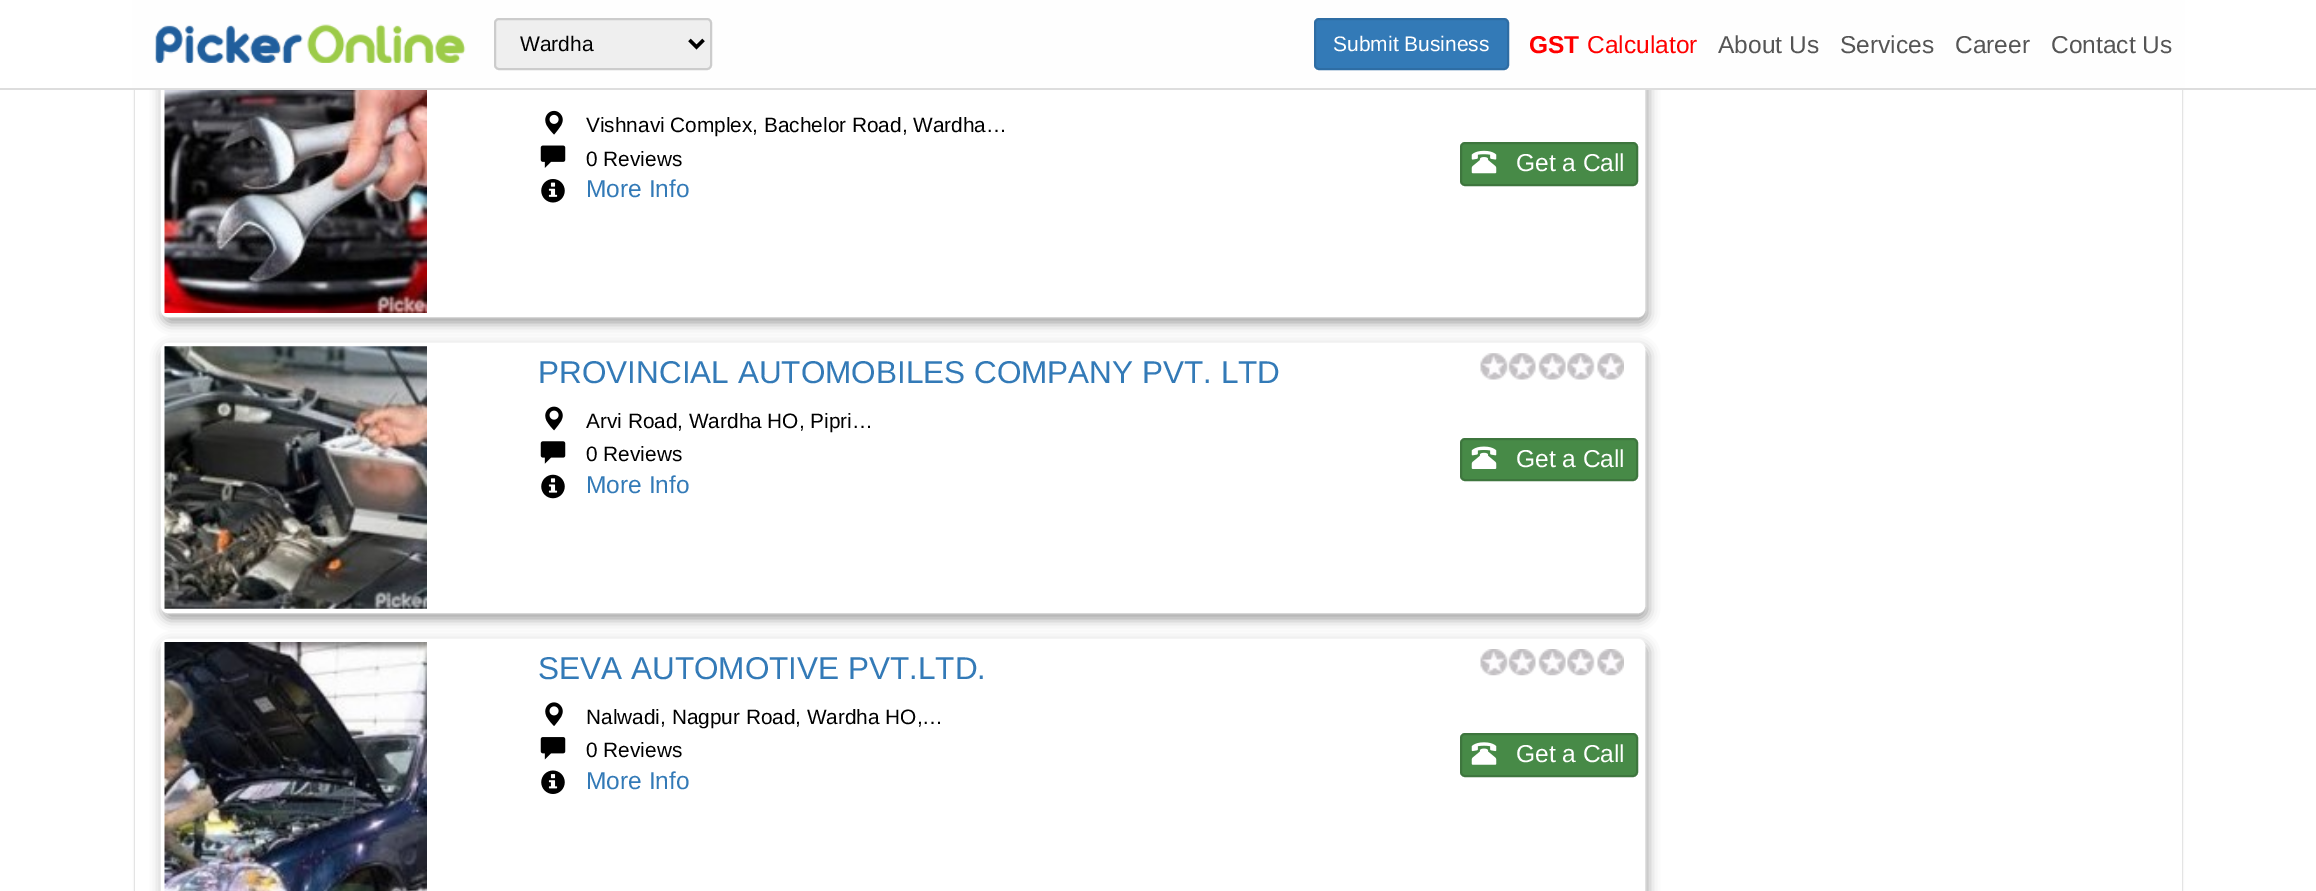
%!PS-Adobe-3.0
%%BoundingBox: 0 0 2316 891
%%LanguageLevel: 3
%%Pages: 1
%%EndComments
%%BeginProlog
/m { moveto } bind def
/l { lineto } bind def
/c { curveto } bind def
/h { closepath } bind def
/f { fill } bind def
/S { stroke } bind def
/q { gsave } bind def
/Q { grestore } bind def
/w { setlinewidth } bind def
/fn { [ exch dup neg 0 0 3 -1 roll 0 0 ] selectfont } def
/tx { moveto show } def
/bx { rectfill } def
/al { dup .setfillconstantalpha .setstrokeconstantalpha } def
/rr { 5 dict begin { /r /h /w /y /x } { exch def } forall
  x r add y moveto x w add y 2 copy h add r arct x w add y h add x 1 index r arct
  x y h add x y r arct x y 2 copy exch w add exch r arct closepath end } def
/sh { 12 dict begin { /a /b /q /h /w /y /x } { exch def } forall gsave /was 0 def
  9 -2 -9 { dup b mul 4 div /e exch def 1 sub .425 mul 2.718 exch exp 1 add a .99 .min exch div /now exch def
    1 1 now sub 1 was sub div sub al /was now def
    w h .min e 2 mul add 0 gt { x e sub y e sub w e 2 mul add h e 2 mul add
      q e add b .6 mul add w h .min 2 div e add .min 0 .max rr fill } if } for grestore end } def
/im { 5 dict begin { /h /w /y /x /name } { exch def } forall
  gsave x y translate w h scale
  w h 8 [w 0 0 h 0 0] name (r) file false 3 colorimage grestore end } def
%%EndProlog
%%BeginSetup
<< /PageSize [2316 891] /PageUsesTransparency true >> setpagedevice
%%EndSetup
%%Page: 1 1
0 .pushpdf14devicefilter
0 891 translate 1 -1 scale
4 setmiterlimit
1 setgray
0 0 2316 891 bx
q
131 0 m 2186 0 l 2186 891 l 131 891 l h 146 -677 m 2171 -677 l 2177 -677 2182 -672 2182 -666 c 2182 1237 l 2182 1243 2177 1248 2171 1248 c 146 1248 l 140 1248 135 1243 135 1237 c 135 -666 l 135 -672 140 -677 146 -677 c h eoclip newpath
0 setgray
135 -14 2047 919 11 1 0.32 sh
Q
q
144 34 m 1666 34 l 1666 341 l 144 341 l h 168 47 m 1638 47 l 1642 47 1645 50 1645 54 c 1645 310 l 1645 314 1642 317 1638 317 c 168 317 l 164 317 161 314 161 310 c 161 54 l 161 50 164 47 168 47 c h eoclip newpath
0 setgray
163 53 1484 269 7 6 0.44 sh
Q
q
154 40 m 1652 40 l 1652 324 l 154 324 l h 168 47 m 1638 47 l 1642 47 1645 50 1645 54 c 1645 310 l 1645 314 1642 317 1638 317 c 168 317 l 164 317 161 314 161 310 c 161 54 l 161 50 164 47 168 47 c h eoclip newpath
161 47 1484 270 7 2 1 sh
Q
4 w
163 49 1480 266 5 rr S
0.996 setgray
133 0 2051 88 bx
0.867 setgray
0 88 2316 2 bx
(image0.raw) 155 24 311 39 im
0.937 setgray
495 19 216 50 4 rr q f Q
0.8 setgray
2 w
S
0 setgray
3.5 w
689.5 40 m 696.5 47 l 703.5 40 l S
/LiberationSans-Regular 21 fn
(Wardha) 520 51 tx
0.2 0.478 0.718 setrgbcolor
1315 19 193 50 4 rr q f Q
0.18 0.427 0.643 setrgbcolor
2 w
S
1 setgray
(Submit Business) 1333 51 tx
/LiberationSans-Bold 24.5 fn
1 0 0 setrgbcolor
(GST) 1529 53 tx
/LiberationSans-Regular 24.5 fn
(Calculator) 1587 53 tx
0.333 setgray
(About Us) 1718 53 tx
(Services) 1840 53 tx
(Career) 1955 53 tx
(Contact Us) 2051 53 tx
(image1.raw) 164 90 263 223 im
(image2.raw) 545 110 18 25 im
/LiberationSans-Regular 20.8 fn
0 setgray
(Vishnavi Complex, Bachelor Road, Wardha…) 586 132 tx
(image3.raw) 540 145 26 23 im
(0 Reviews) 586 166 tx
0.278 0.541 0.278 setrgbcolor
1461 143 176 42 4 rr q f Q
0.243 0.463 0.243 setrgbcolor
S
(image4.raw) 1471 150 26 24 im
/LiberationSans-Regular 24.5 fn
1 setgray
(Get a Call) 1516 171 tx
(image5.raw) 541 179 24 24 im
0.2 0.478 0.718 setrgbcolor
(More Info) 586 197 tx
q
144 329 m 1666 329 l 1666 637 l 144 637 l h 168 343 m 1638 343 l 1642 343 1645 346 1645 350 c 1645 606 l 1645 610 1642 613 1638 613 c 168 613 l 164 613 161 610 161 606 c 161 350 l 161 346 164 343 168 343 c h eoclip newpath
0 setgray
163 348 1484 270 7 6 0.44 sh
Q
q
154 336 m 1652 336 l 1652 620 l 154 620 l h 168 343 m 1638 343 l 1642 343 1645 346 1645 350 c 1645 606 l 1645 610 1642 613 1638 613 c 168 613 l 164 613 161 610 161 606 c 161 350 l 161 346 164 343 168 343 c h eoclip newpath
1 setgray
161 343 1484 270 7 2 1 sh
Q
1 setgray
4 w
163 345 1480 266 5 rr S
(image6.raw) 164 346 263 263 im
/LiberationSans-Regular 31.5 fn
0.2 0.478 0.718 setrgbcolor
(PROVINCIAL AUTOMOBILES COMPANY PVT. LTD) 538 383 tx
(image7.raw) 1480 353 144 27 im
(image8.raw) 545 406 18 25 im
/LiberationSans-Regular 20.8 fn
0 setgray
(Arvi Road, Wardha HO, Pipri…) 586 428 tx
(image9.raw) 540 441 26 23 im
(0 Reviews) 586 461 tx
0.278 0.541 0.278 setrgbcolor
1461 439 176 41 4 rr q f Q
0.243 0.463 0.243 setrgbcolor
2 w
S
(image10.raw) 1471 446 26 23 im
/LiberationSans-Regular 24.5 fn
1 setgray
(Get a Call) 1516 467 tx
(image11.raw) 541 474 24 25 im
0.2 0.478 0.718 setrgbcolor
(More Info) 586 493 tx
q
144 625 m 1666 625 l 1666 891 l 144 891 l h 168 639 m 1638 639 l 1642 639 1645 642 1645 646 c 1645 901 l 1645 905 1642 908 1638 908 c 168 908 l 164 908 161 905 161 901 c 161 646 l 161 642 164 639 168 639 c h eoclip newpath
0 setgray
163 644 1484 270 7 6 0.44 sh
Q
q
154 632 m 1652 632 l 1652 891 l 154 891 l h 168 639 m 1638 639 l 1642 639 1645 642 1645 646 c 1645 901 l 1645 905 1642 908 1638 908 c 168 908 l 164 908 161 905 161 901 c 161 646 l 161 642 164 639 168 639 c h eoclip newpath
1 setgray
161 639 1484 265 7 2 1 sh
Q
1 setgray
4 w
163 641 1480 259 5 rr S
(image12.raw) 164 642 263 249 im
/LiberationSans-Regular 31.5 fn
0.2 0.478 0.718 setrgbcolor
(SEVA AUTOMOTIVE PVT.LTD.) 538 679 tx
(image13.raw) 1480 649 144 27 im
(image14.raw) 545 702 18 24 im
/LiberationSans-Regular 20.8 fn
0 setgray
(Nalwadi, Nagpur Road, Wardha HO,…) 586 724 tx
(image15.raw) 540 737 26 23 im
(0 Reviews) 586 757 tx
0.278 0.541 0.278 setrgbcolor
1461 734 176 42 4 rr q f Q
0.243 0.463 0.243 setrgbcolor
2 w
S
(image16.raw) 1471 742 26 23 im
/LiberationSans-Regular 24.5 fn
1 setgray
(Get a Call) 1516 762 tx
(image17.raw) 541 770 24 24 im
0.2 0.478 0.718 setrgbcolor
(More Info) 586 789 tx
.poppdf14devicefilter showpage
%%EOF
